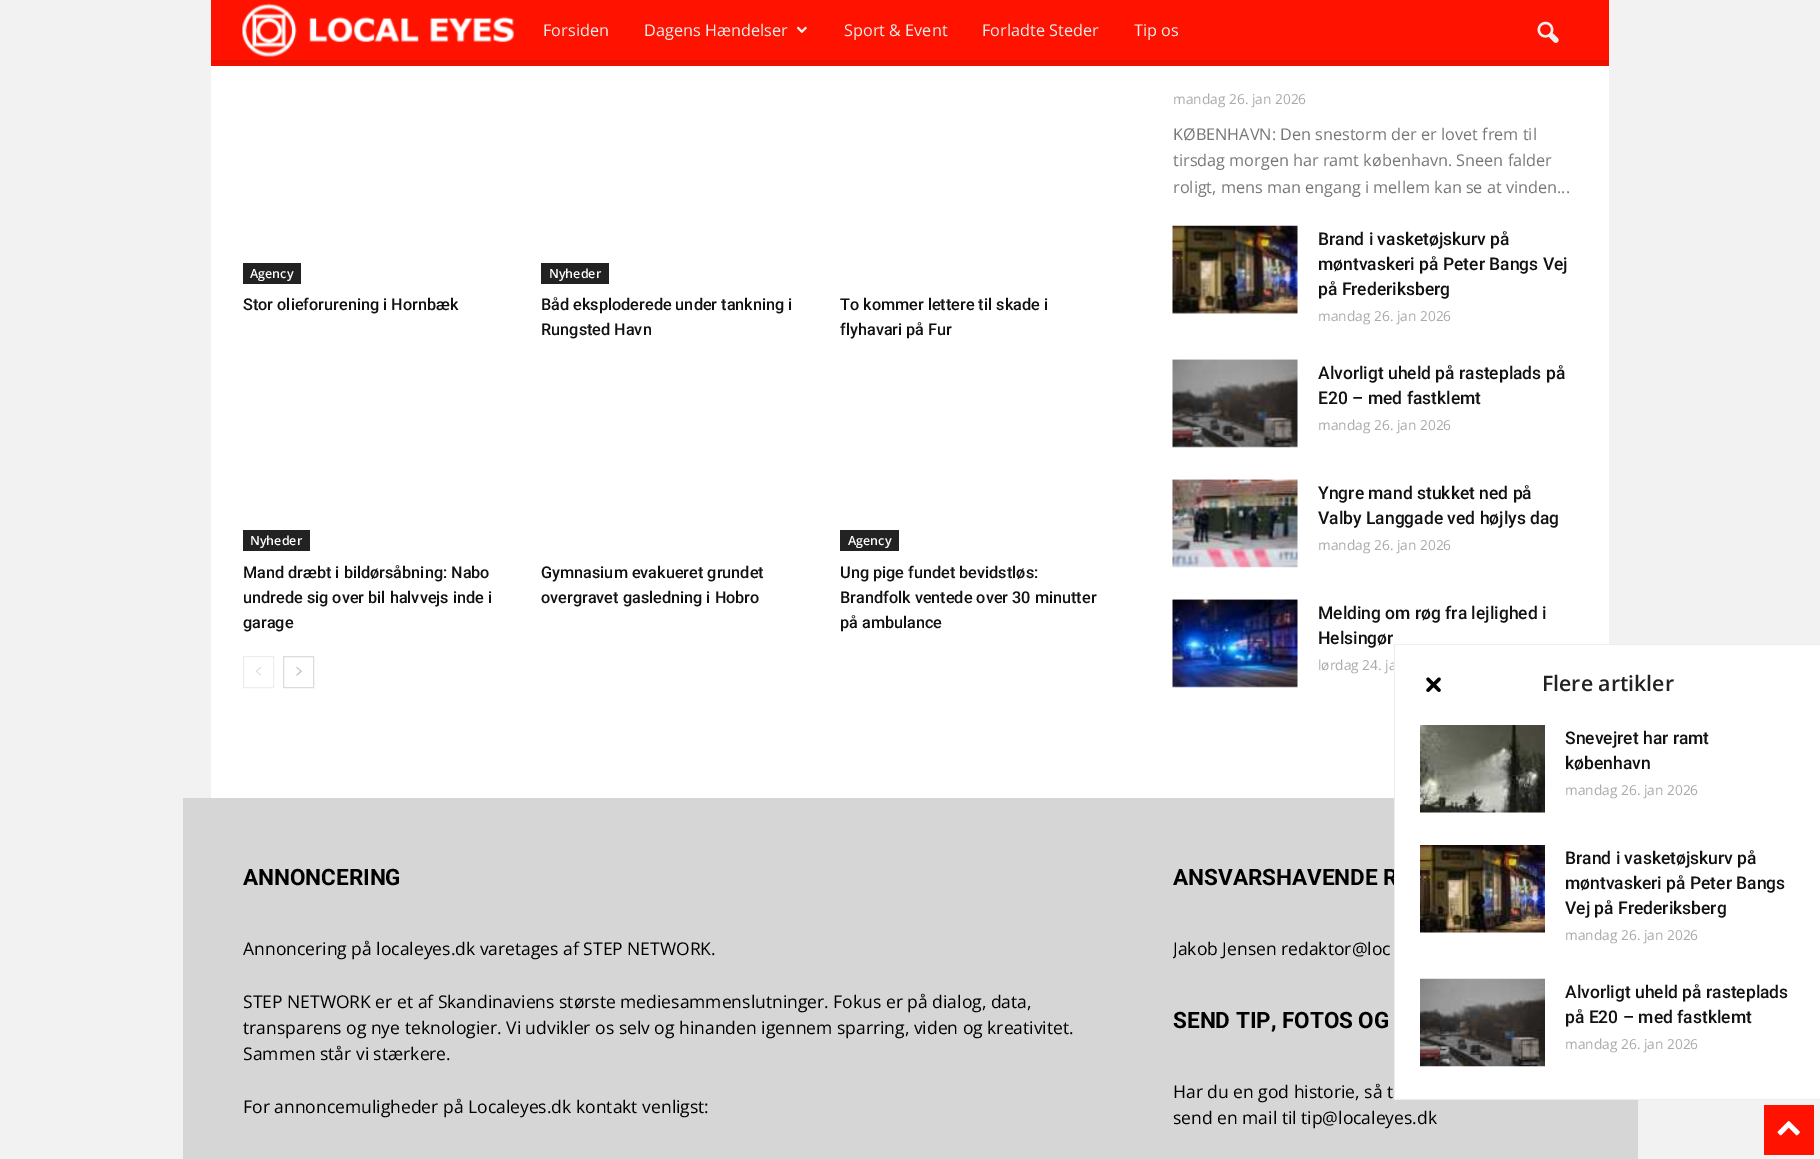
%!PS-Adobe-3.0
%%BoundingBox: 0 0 1820 1159
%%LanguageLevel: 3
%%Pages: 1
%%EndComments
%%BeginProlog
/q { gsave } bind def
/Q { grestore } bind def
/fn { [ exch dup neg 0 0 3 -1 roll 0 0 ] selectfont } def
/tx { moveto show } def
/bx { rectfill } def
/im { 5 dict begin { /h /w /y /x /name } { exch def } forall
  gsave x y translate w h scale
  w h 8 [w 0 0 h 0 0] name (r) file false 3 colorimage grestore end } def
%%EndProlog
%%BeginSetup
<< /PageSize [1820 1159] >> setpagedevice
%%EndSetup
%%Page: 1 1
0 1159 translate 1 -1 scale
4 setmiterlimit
0.949 setgray
0 0 1820 1159 bx
1 0.071 0 setrgbcolor
211 0 1398 66 bx
(image0.raw) 242 3 272 54 im
/OpenSans-Regular 16.25 fn
0.937 setgray
(Forsiden) 543 36 tx
(Dagens Hændelser) 644 36 tx
(image1.raw) 796 26 11 8 im
(Sport & Event) 844 36 tx
(Forladte Steder) 982 36 tx
(Tip os) 1134 36 tx
(image2.raw) 1537 21 22 22 im
(image3.raw) 211 60 1398 6 im
1 setgray
211 66 1398 732 bx
0.133 setgray
243 263 58 21 bx
/OpenSans-SemiBold 12.5 fn
1 setgray
(Agency) 250 278 tx
/Roboto-Medium 16.25 fn
0.067 setgray
(Stor olieforurening i Hornbæk) 243 310 tx
0.133 setgray
541 263 68 21 bx
/OpenSans-SemiBold 12.5 fn
1 setgray
(Nyheder) 549 278 tx
/Roboto-Medium 16.25 fn
0.067 setgray
(Båd eksploderede under tankning i) 541 310 tx
(Rungsted Havn) 541 335 tx
(To kommer lettere til skade i) 840 310 tx
(flyhavari på Fur) 840 335 tx
0.133 setgray
243 530 67 21 bx
/OpenSans-SemiBold 12.5 fn
1 setgray
(Nyheder) 250 545 tx
/Roboto-Medium 16.25 fn
0.067 setgray
(Mand dræbt i bildørsåbning: Nabo) 243 578 tx
(undrede sig over bil halvvejs inde i) 243 603 tx
(garage) 243 628 tx
(Gymnasium evakueret grundet) 541 578 tx
(overgravet gasledning i Hobro) 541 603 tx
0.133 setgray
840 530 59 21 bx
/OpenSans-SemiBold 12.5 fn
1 setgray
(Agency) 848 545 tx
/Roboto-Medium 16.25 fn
0.067 setgray
(Ung pige fundet bevidstløs:) 840 578 tx
(Brandfolk ventede over 30 minutter) 840 603 tx
(på ambulance) 840 628 tx
0.933 setgray
243.5 656.5 30 31 rectstroke
(image4.raw) 255 667 7 9 im
0.863 setgray
283.5 656.5 30 31 rectstroke
(image5.raw) 296 667 6 9 im
/OpenSans-Regular 13.75 fn
0.667 setgray
(mandag 26. jan 2026) 1173 104 tx
/OpenSans-Regular 16.25 fn
0.467 setgray
(KØBENHAVN: Den snestorm der er lovet frem til) 1173 140 tx
(tirsdag morgen har ramt københavn. Sneen falder) 1173 166 tx
(roligt, mens man engang i mellem kan se at vinden...) 1173 193 tx
(image6.raw) 1172 225 126 89 im
/Roboto-Medium 17.5 fn
0.067 setgray
(Brand i vasketøjskurv på) 1318 245 tx
(møntvaskeri på Peter Bangs Vej) 1318 270 tx
(på Frederiksberg) 1318 295 tx
/OpenSans-Regular 13.75 fn
0.667 setgray
(mandag 26. jan 2026) 1318 321 tx
(image7.raw) 1172 359 126 89 im
/Roboto-Medium 17.5 fn
0.067 setgray
(Alvorligt uheld på rasteplads på) 1318 379 tx
(E20 – med fastklemt) 1318 404 tx
/OpenSans-Regular 13.75 fn
0.667 setgray
(mandag 26. jan 2026) 1318 430 tx
(image8.raw) 1172 479 126 89 im
/Roboto-Medium 17.5 fn
0.067 setgray
(Yngre mand stukket ned på) 1318 499 tx
(Valby Langgade ved højlys dag) 1318 524 tx
/OpenSans-Regular 13.75 fn
0.667 setgray
(mandag 26. jan 2026) 1318 550 tx
(image9.raw) 1172 599 126 89 im
/Roboto-Medium 17.5 fn
0.067 setgray
(Melding om røg fra lejlighed i) 1318 619 tx
(Helsingør) 1318 644 tx
/OpenSans-Regular 13.75 fn
0.667 setgray
(lørdag 24. ja) 1318 670 tx
0.839 setgray
183 798 1455 361 bx
/Roboto-Bold 22.5 fn
0 setgray
(ANNONCERING) 243 885 tx
/OpenSans-Regular 17.5 fn
(Annoncering på localeyes.dk varetages af STEP NETWORK.) 243 955 tx
(STEP NETWORK er et af Skandinaviens største mediesammenslutninger. Fokus er på dialog, data,) 243 1008 tx
(transparens og nye teknologier. Vi udvikler os selv og hinanden igennem sparring, viden og kreativitet.) 243 1034 tx
(Sammen står vi stærkere.) 243 1060 tx
(For annoncemuligheder på Localeyes.dk kontakt venligst:) 243 1113 tx
/Roboto-Bold 22.5 fn
(ANSVARSHAVENDE R) 1173 885 tx
q
1173 866 405 122 rectclip
/OpenSans-Regular 17.5 fn
(Jakob Jensen redaktor@loc) 1173 955 tx
Q
(SEND TIP, FOTOS OG) 1173 1028 tx
/OpenSans-Regular 17.5 fn
(Har du en god historie, så t) 1173 1098 tx
(send en mail til tip@localeyes.dk) 1173 1124 tx
1 setgray
1395 645 425 454 bx
0.929 setgray
1394 644 426 1 bx
1394 1099 426 1 bx
1394 644 1 456 bx
(image10.raw) 1426 677 15 15 im
/OpenSans-SemiBold 21.25 fn
0.133 setgray
(Flere artikler) 1542 691 tx
(image11.raw) 1420 725 125 88 im
/Roboto-Medium 17.5 fn
0.067 setgray
(Snevejret har ramt) 1565 744 tx
(københavn) 1565 769 tx
/OpenSans-Regular 13.75 fn
0.667 setgray
(mandag 26. jan 2026) 1565 795 tx
(image12.raw) 1420 845 125 88 im
/Roboto-Medium 17.5 fn
0.067 setgray
(Brand i vasketøjskurv på) 1565 864 tx
(møntvaskeri på Peter Bangs) 1565 889 tx
(Vej på Frederiksberg) 1565 914 tx
/OpenSans-Regular 13.75 fn
0.667 setgray
(mandag 26. jan 2026) 1565 940 tx
(image13.raw) 1420 978 125 89 im
/Roboto-Medium 17.5 fn
0.067 setgray
(Alvorligt uheld på rasteplads) 1565 998 tx
(på E20 – med fastklemt) 1565 1023 tx
/OpenSans-Regular 13.75 fn
0.667 setgray
(mandag 26. jan 2026) 1565 1049 tx
1 0.071 0 setrgbcolor
1764 1105 50 50 bx
(image14.raw) 1777 1121 23 15 im
showpage
%%EOF
